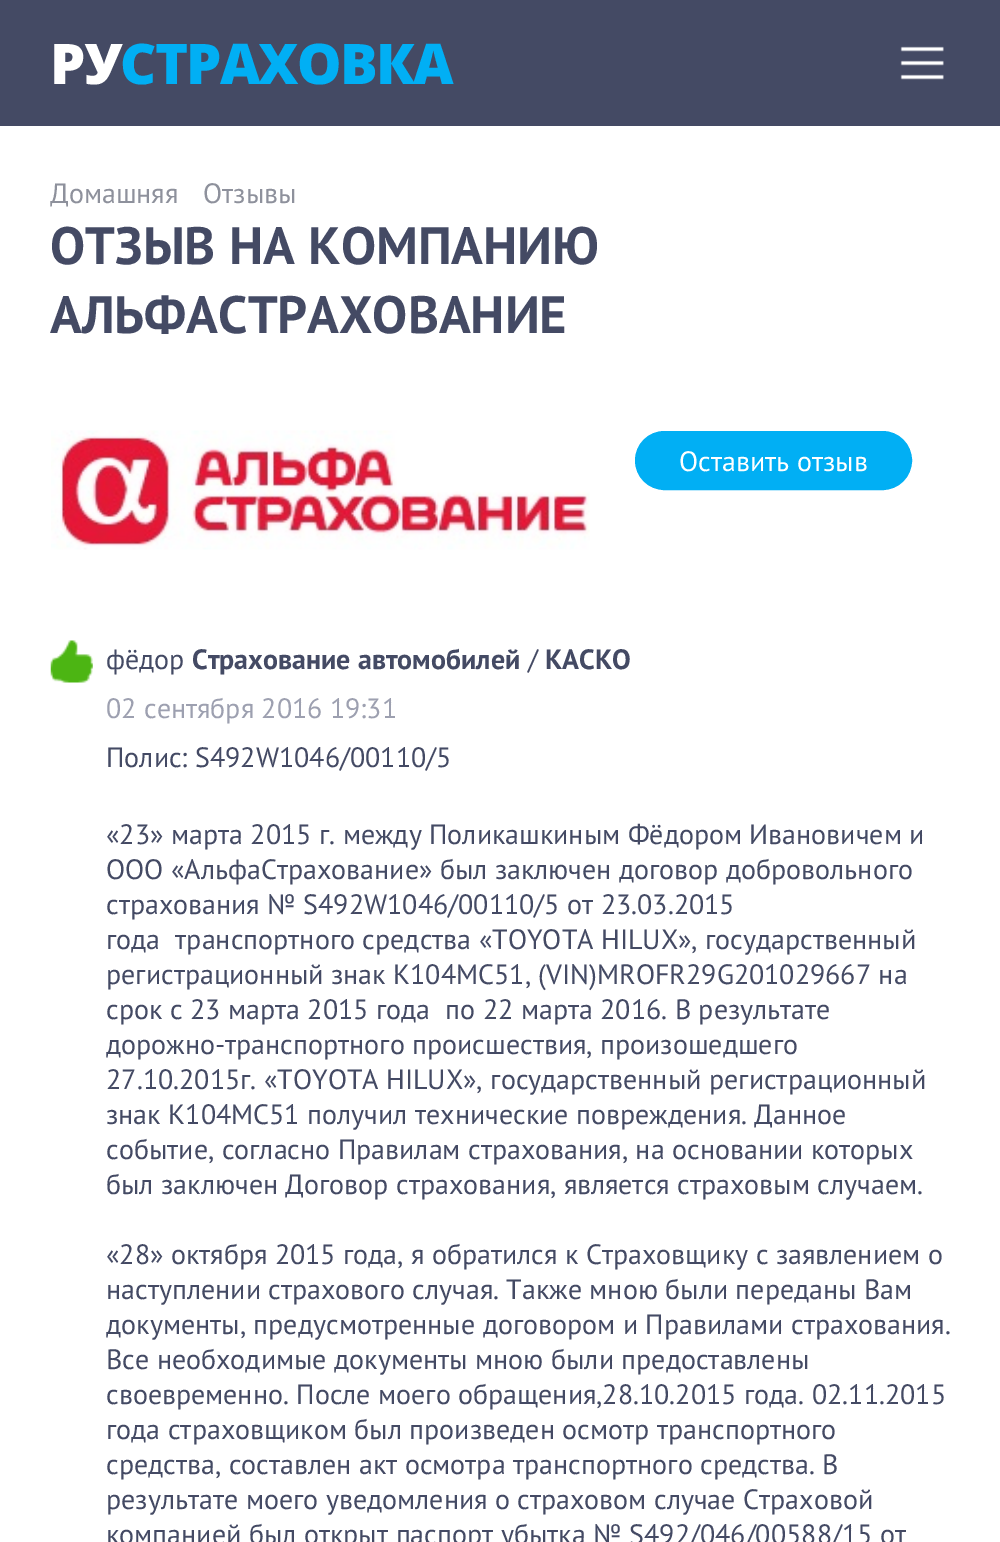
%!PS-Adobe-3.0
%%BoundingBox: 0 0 1000 1542
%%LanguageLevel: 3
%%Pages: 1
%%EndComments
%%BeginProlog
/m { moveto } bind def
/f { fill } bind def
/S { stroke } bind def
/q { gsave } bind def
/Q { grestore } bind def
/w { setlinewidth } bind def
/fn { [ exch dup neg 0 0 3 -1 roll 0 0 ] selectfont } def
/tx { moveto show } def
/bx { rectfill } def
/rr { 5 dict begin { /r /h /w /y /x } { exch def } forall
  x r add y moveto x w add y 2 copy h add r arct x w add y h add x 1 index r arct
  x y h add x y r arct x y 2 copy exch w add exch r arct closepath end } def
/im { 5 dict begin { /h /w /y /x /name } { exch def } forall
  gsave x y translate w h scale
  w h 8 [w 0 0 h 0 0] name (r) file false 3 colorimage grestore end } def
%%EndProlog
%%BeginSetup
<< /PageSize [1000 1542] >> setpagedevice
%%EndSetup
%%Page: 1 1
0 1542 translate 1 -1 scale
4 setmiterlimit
1 setgray
0 0 1000 1542 bx
0.267 0.29 0.392 setrgbcolor
0 0 1000 126 bx
/OpenSans-ExtraBold 56 fn
1 setgray
50 84 m -1.75 0 (РУ) ashow
0.004 0.686 0.957 setrgbcolor
120 84 m -1.75 0 (СТРАХОВКА) ashow
(image0.raw) 900 46 44 34 im
/PTSans-Regular 28 fn
0.557 0.569 0.612 setrgbcolor
(Домашняя) 50 203 tx
(Отзывы) 203 203 tx
/PTSans-Bold 52.5 fn
0.267 0.29 0.392 setrgbcolor
(ОТЗЫВ НА КОМПАНИЮ) 50 264 tx
(АЛЬФАСТРАХОВАНИЕ) 50 333 tx
(image1.raw) 51 430 539 120 im
0.004 0.686 0.957 setrgbcolor
636 432 275 57 28.5 rr q f Q
2 w
S
/PTSans-Regular 28 fn
1 setgray
(Оставить отзыв) 679 471 tx
(image2.raw) 50 640 43 43 im
0.267 0.29 0.392 setrgbcolor
(фёдор) 106 669 tx
/PTSans-Bold 28 fn
(Страхование автомобилей) 192 669 tx
/PTSans-Regular 28 fn
(/) 528 669 tx
/PTSans-Bold 28 fn
(КАСКО) 545 669 tx
/PTSans-Regular 28 fn
0.616 0.627 0.69 setrgbcolor
(02 сентября 2016 19:31) 106 718 tx
0.267 0.29 0.392 setrgbcolor
(Полис: S492W1046/00110/5) 106 767 tx
(«23» марта 2015 г. между Поликашкиным Фёдором Ивановичем и) 106 844 tx
(ООО «АльфаСтрахование» был заключен договор добровольного) 106 879 tx
(страхования № S492W1046/00110/5 от 23.03.2015) 106 914 tx
(года  транспортного средства «TOYOTA HILUX», государственный) 106 949 tx
(регистрационный знак К104МС51, \(VIN\)MROFR29G201029667 на) 106 984 tx
(срок с 23 марта 2015 года  по 22 марта 2016. В результате) 106 1019 tx
(дорожно-транспортного происшествия, произошедшего) 106 1054 tx
(27.10.2015г. «TOYOTA HILUX», государственный регистрационный) 106 1089 tx
(знак К104МС51 получил технические повреждения. Данное) 106 1124 tx
(событие, согласно Правилам страхования, на основании которых) 106 1159 tx
(был заключен Договор страхования, является страховым случаем.) 106 1194 tx
(«28» октября 2015 года, я обратился к Страховщику с заявлением о) 106 1264 tx
(наступлении страхового случая. Также мною были переданы Вам) 106 1299 tx
(документы, предусмотренные договором и Правилами страхования.) 106 1334 tx
(Все необходимые документы мною были предоставлены) 106 1369 tx
(своевременно. После моего обращения,28.10.2015 года. 02.11.2015) 106 1404 tx
(года страховщиком был произведен осмотр транспортного) 106 1439 tx
(средства, составлен акт осмотра транспортного средства. В) 106 1474 tx
(результате моего уведомления о страховом случае Страховой) 106 1509 tx
(компанией был открыт паспорт убытка № S492/046/00588/15 от) 106 1544 tx
showpage
%%EOF
